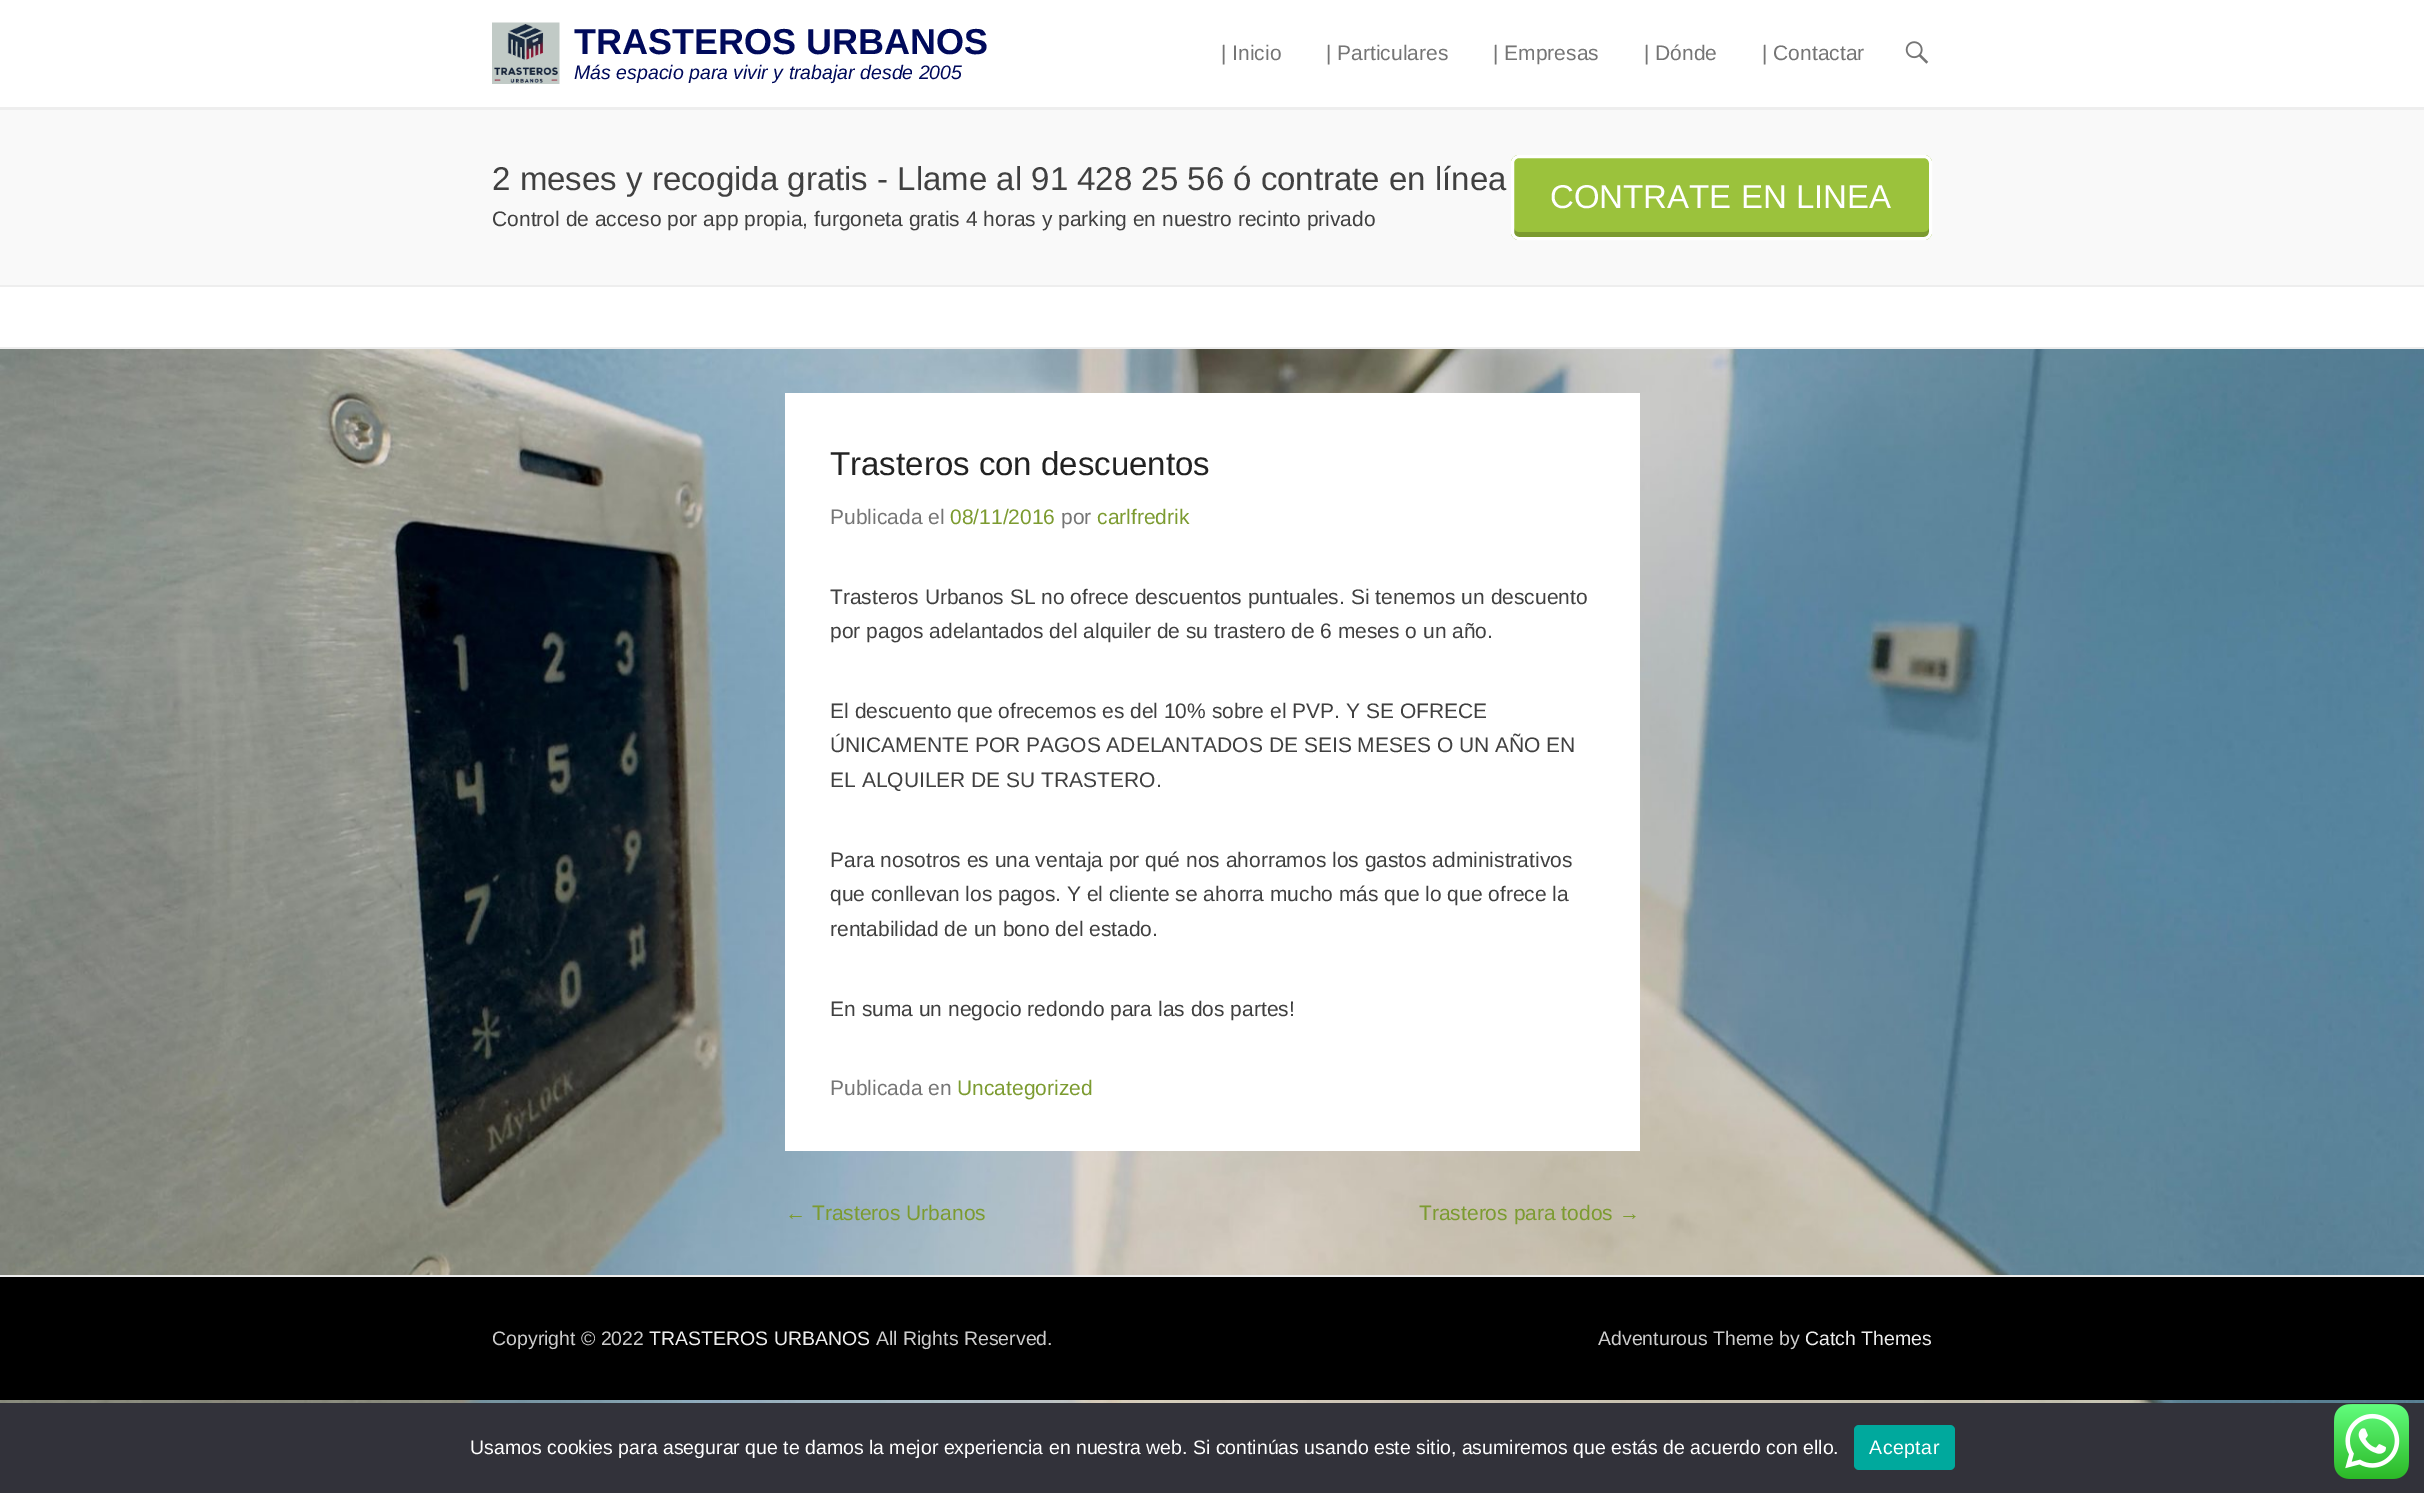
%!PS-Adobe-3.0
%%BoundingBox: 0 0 2424 1493
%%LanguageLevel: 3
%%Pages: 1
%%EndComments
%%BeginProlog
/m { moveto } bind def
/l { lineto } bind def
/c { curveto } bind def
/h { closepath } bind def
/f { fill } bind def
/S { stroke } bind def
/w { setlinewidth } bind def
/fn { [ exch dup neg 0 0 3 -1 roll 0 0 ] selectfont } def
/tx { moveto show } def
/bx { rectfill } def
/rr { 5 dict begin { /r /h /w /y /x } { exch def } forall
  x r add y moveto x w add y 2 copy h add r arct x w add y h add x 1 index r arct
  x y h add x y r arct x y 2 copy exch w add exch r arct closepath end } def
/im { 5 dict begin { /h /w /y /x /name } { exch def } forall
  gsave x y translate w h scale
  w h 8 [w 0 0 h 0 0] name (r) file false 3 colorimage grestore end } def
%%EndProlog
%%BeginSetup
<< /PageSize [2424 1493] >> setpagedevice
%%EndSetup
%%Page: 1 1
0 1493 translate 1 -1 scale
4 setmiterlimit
1 setgray
0 0 2424 1493 bx
(image0.raw) 0 349 2424 1054 im
(image1.raw) 492 22 68 62 im
/LiberationSans-Bold 36 fn
0 0.039 0.357 setrgbcolor
(TRASTEROS URBANOS) 574 54 tx
/LiberationSans-Italic 19.5 fn
(Más espacio para vivir y trabajar desde 2005) 574 79 tx
/LiberationSans-Regular 21 fn
0.459 setgray
(| Inicio) 1221 60 tx
(| Particulares) 1326 60 tx
(| Empresas) 1493 60 tx
(| Dónde) 1644 60 tx
(| Contactar) 1762 60 tx
(image2.raw) 1905 41 24 23 im
0.976 setgray
0 110 2424 175 bx
0.933 setgray
0 107 2424 3 bx
0 285 2424 2 bx
/LiberationSans-Regular 33 fn
0.251 setgray
(2 meses y recogida gratis - Llame al 91 428 25 56 ó contrate en línea) 492 190 tx
/LiberationSans-Regular 21 fn
(Control de acceso por app propia, furgoneta gratis 4 horas y parking en nuestro recinto privado) 492 226 tx
0.608 0.761 0.235 setrgbcolor
1511 155 421 85 8 rr f
0.486 0.608 0.188 setrgbcolor
1514 228 m 1514 232 1514 237 1519 237 c 1924 237 l 1929 237 1929 232 1929 228 c 1929 230 1927 232 1924 232 c 1518 232 l 1516 232 1514 230 1514 228 c h f
1 setgray
3 w
1512.5 156.5 418 82 6.5 rr S
/LiberationSans-Regular 33 fn
(CONTRATE EN LINEA) 1550 208 tx
0.933 setgray
0 347 2424 2 bx
1 setgray
785 393 855 758 bx
0.133 setgray
(Trasteros con descuentos) 830 475 tx
/LiberationSans-Regular 21 fn
0.459 setgray
(Publicada el) 830 524 tx
0.486 0.608 0.188 setrgbcolor
(08/11/2016) 950 524 tx
0.459 setgray
(por) 1061 524 tx
0.486 0.608 0.188 setrgbcolor
(carlfredrik) 1097 524 tx
0.251 setgray
(Trasteros Urbanos SL no ofrece descuentos puntuales. Si tenemos un descuento) 830 604 tx
(por pagos adelantados del alquiler de su trastero de 6 meses o un año.) 830 638 tx
(El descuento que ofrecemos es del 10% sobre el PVP. Y SE OFRECE) 830 718 tx
(ÚNICAMENTE POR PAGOS ADELANTADOS DE SEIS MESES O UN AÑO EN) 830 752 tx
(EL ALQUILER DE SU TRASTERO.) 830 787 tx
(Para nosotros es una ventaja por qué nos ahorramos los gastos administrativos) 830 867 tx
(que conllevan los pagos. Y el cliente se ahorra mucho más que lo que ofrece la) 830 901 tx
(rentabilidad de un bono del estado.) 830 936 tx
(En suma un negocio redondo para las dos partes!) 830 1016 tx
0.459 setgray
(Publicada en) 830 1095 tx
0.486 0.608 0.188 setrgbcolor
(Uncategorized) 957 1095 tx
(← Trasteros Urbanos) 785 1220 tx
(Trasteros para todos →) 1419 1220 tx
0.933 setgray
0 1275 2424 2 bx
0 setgray
0 1277 2424 123 bx
/LiberationSans-Regular 19.5 fn
0.8 setgray
(Copyright © 2022) 492 1345 tx
0.933 setgray
(TRASTEROS URBANOS) 649 1345 tx
0.8 setgray
(All Rights Reserved.) 876 1345 tx
(Adventurous Theme by) 1598 1345 tx
0.933 setgray
(Catch Themes) 1805 1345 tx
0.196 0.196 0.227 setrgbcolor
0 1403 2424 90 bx
1 setgray
(Usamos cookies para asegurar que te damos la mejor experiencia en nuestra web. Si continúas usando este sitio, asumiremos que estás de acuerdo con ello.) 470 1454 tx
0 0.663 0.616 setrgbcolor
1854 1425 101 45 5 rr f
1 setgray
1869 1454 m 0.5 0 (Aceptar) ashow
(image3.raw) 2334 1404 75 75 im
showpage
%%EOF
